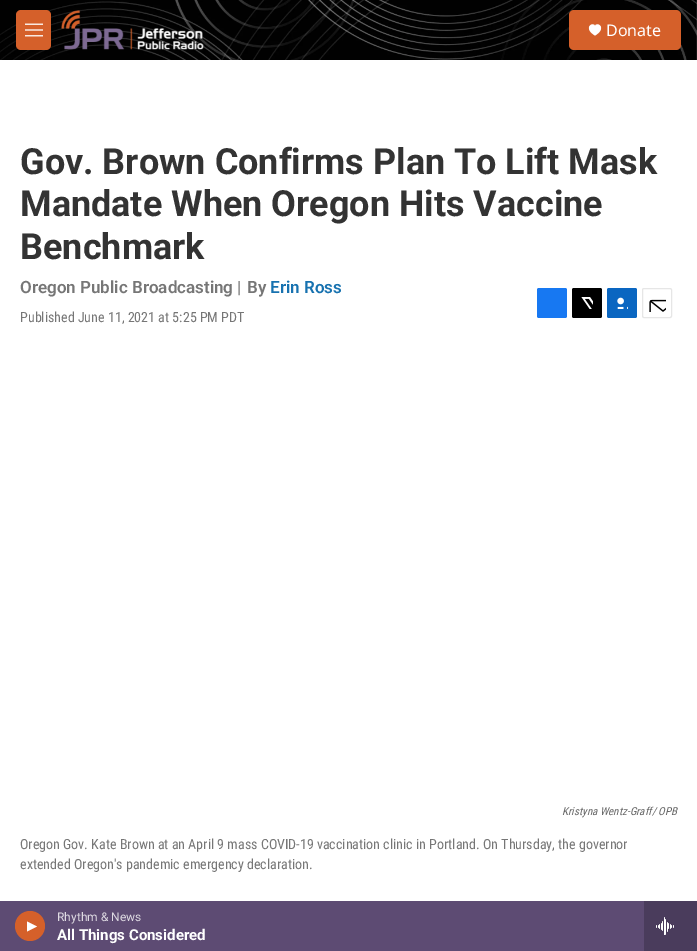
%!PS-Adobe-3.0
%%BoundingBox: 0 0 697 951
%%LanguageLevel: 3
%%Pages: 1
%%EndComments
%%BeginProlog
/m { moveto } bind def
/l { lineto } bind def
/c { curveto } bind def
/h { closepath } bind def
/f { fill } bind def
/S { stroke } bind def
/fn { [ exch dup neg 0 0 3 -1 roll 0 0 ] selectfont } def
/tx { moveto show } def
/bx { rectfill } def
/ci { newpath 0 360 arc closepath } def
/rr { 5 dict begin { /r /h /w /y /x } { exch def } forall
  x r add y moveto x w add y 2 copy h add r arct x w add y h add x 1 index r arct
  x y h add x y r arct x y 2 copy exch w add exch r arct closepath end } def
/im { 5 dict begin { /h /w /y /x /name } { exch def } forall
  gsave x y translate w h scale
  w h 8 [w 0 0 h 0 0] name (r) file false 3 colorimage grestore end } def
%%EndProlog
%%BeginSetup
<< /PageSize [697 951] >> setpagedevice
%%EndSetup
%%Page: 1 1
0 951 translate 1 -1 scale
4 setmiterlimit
1 setgray
0 0 697 951 bx
(image0.raw) 0 0 697 60 im
0.835 0.376 0.165 setrgbcolor
16 10 35 40 5 rr f
(image1.raw) 25 23 18 14 im
(image2.raw) 61 10 143 40 im
569 10 112 40 5 rr f
1 setgray
595 26 m 593 21 582.5 28 595 35.5 c 607.5 28 597 21 595 26 c h f
/NotoSans-Regular 16 fn
(Donate) 606 36 tx
0.365 0.294 0.451 setrgbcolor
0 901 644 50 bx
0.835 0.376 0.165 setrgbcolor
30 926 15 ci f
1 setgray
27 921.5 m 37 926.5 l 27 931.5 l h f
/Roboto-Regular 12 fn
0.875 0.859 0.89 setrgbcolor
(Rhythm & News) 57 921 tx
/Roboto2-Bold 15 fn
1 setgray
(All Things Considered) 57 940 tx
0.29 0.235 0.361 setrgbcolor
644 901 53 50 bx
(image3.raw) 656 917 18 18 im
/Roboto-Bold 36 fn
0.2 setgray
(Gov. Brown Confirms Plan To Lift Mask) 20 174 tx
(Mandate When Oregon Hits Vaccine) 20 216 tx
(Benchmark) 20 259 tx
/Roboto-SemiBold 17 fn
0.463 setgray
(Oregon Public Broadcasting |) 20 293 tx
(By) 247 293 tx
0.09 0.447 0.69 setrgbcolor
(Erin Ross) 270 293 tx
/RobotoCondensed-Regular 14 fn
0.463 setgray
(Published June 11, 2021 at 5:25 PM PDT) 20 322 tx
0.09 0.471 0.949 setrgbcolor
537 288 30 30 2 rr f
0 setgray
572 288 30 30 2 rr f
(image4.raw) 581 297 12 12 im
0.039 0.4 0.757 setrgbcolor
607 288 30 30 2 rr f
(image5.raw) 617 297 11 12 im
0.902 setgray
642.5 288.5 29 29 1.5 rr S
(image6.raw) 649 299 17 13 im
/RobotoCondensed-Italic 11 fn
0.4 setgray
(Kristyna Wentz-Graff/ OPB) 562 815 tx
/RobotoCondensed-Regular 14 fn
0.463 setgray
(Oregon Gov. Kate Brown at an April 9 mass COVID-19 vaccination clinic in Portland. On Thursday, the governor) 20 849 tx
(extended Oregon's pandemic emergency declaration.) 20 869 tx
showpage
%%EOF
